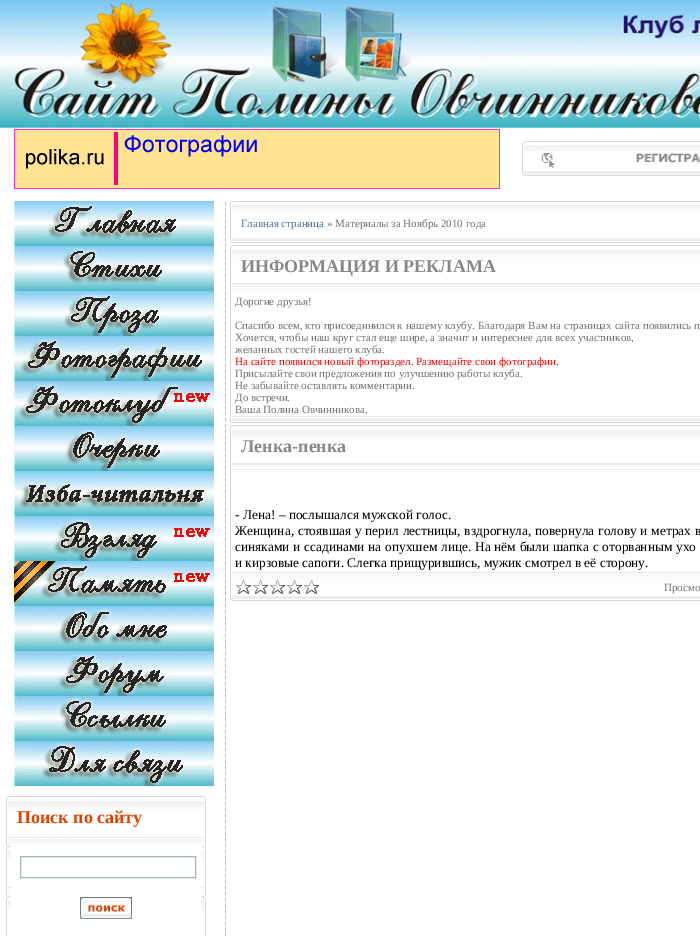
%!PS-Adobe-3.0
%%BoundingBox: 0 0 700 936
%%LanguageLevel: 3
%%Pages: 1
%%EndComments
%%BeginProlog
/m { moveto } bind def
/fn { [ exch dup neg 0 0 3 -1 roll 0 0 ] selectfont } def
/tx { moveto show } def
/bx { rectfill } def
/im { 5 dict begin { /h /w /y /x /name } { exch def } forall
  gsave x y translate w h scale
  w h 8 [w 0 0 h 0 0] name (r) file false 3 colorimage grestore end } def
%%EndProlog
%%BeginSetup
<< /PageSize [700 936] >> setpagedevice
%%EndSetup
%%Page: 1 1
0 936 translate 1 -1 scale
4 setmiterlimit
1 setgray
0 0 700 936 bx
(image0.raw) 0 0 700 128 im
(image1.raw) 14 129 486 60 im
(image2.raw) 522 141 178 35 im
(image3.raw) 225 201 1 735 im
(image4.raw) 230 201 5 42 im
(image5.raw) 235 201 465 42 im
/LiberationSerif-Regular 11 fn
0.294 0.443 0.62 setrgbcolor
(Главная страница) 241 227 tx
0.447 setgray
(» Материалы за Ноябрь 2010 года) 327 227 tx
(image6.raw) 230 245 5 50 im
(image7.raw) 235 245 465 47 im
/LiberationSerif-Bold 18 fn
0.533 setgray
(ИНФОРМАЦИЯ И РЕКЛАМА) 241 272 tx
0.851 setgray
230 295 1 120 bx
/LiberationSerif-Regular 11 fn
0.447 setgray
(Дорогие друзья!) 235 305 tx
(Спасибо всем, кто присоединился к нашему клубу. Благодаря Вам на страницах сайта появились п) 235 329 tx
(Хочется, чтобы наш круг стал еще шире, а значит и интереснее для всех участников,) 235 341 tx
(желанных гостей нашего клуба.) 235 353 tx
1 0 0 setrgbcolor
(На сайте появился новый фотораздел. Размещайте свои фотографии.) 235 365 tx
0.447 setgray
(Присылайте свои предложения по улучшению работы клуба.) 235 377 tx
(Не забывайте оставлять комментарии.) 235 389 tx
(До встречи.) 235 401 tx
(Ваша Полина Овчинникова.) 235 413 tx
(image8.raw) 230 415 5 8 im
(image9.raw) 235 416 465 7 im
(image6.raw) 230 425 5 50 im
(image7.raw) 235 425 465 47 im
/LiberationSerif-Bold 18 fn
0.533 setgray
(Ленка-пенка) 241 452 tx
0.851 setgray
230 475 1 96 bx
/LiberationSerif-Regular 13.35 fn
0 setgray
(- Лена! – послышался мужской голос.) 235 519 tx
235 535 m 0.5 0 32 (Женщина, стоявшая у перил лестницы, вздрогнула, повернула голову и метрах в) widthshow
235 551 m 0.5 0 32 (синяками и ссадинами на опухшем лице. На нём были шапка с оторванным ухо) widthshow
(и кирзовые сапоги. Слегка прищурившись, мужик смотрел в её сторону.) 235 567 tx
(image10.raw) 230 571 5 30 im
(image11.raw) 235 572 151 29 im
(image12.raw) 236 580 83 14 im
(image13.raw) 386 572 314 29 im
/LiberationSerif-Regular 11 fn
0.447 setgray
(Просмо) 664 591 tx
(image14.raw) 14 201 200 45 im
(image15.raw) 14 246 200 45 im
(image16.raw) 14 291 200 45 im
(image17.raw) 14 336 200 45 im
(image18.raw) 14 381 200 45 im
(image19.raw) 14 426 200 45 im
(image20.raw) 14 471 200 45 im
(image21.raw) 14 516 200 45 im
(image22.raw) 14 561 200 45 im
(image23.raw) 14 606 200 45 im
(image24.raw) 14 651 200 45 im
(image25.raw) 14 696 200 45 im
(image26.raw) 14 741 200 45 im
(image27.raw) 6 796 5 50 im
(image28.raw) 11 796 190 47 im
/LiberationSerif-Bold 18 fn
0.89 0.251 0 setrgbcolor
(Поиск по сайту) 17 823 tx
(image29.raw) 201 796 5 50 im
(image27.raw) 6 846 5 50 im
0.631 0.694 0.745 setrgbcolor
20.5 856.5 175 21 rectstroke
(image29.raw) 201 846 5 50 im
(image30.raw) 6 896 5 40 im
(image31.raw) 80 897 52 22 im
(image32.raw) 201 896 5 40 im
showpage
%%EOF
